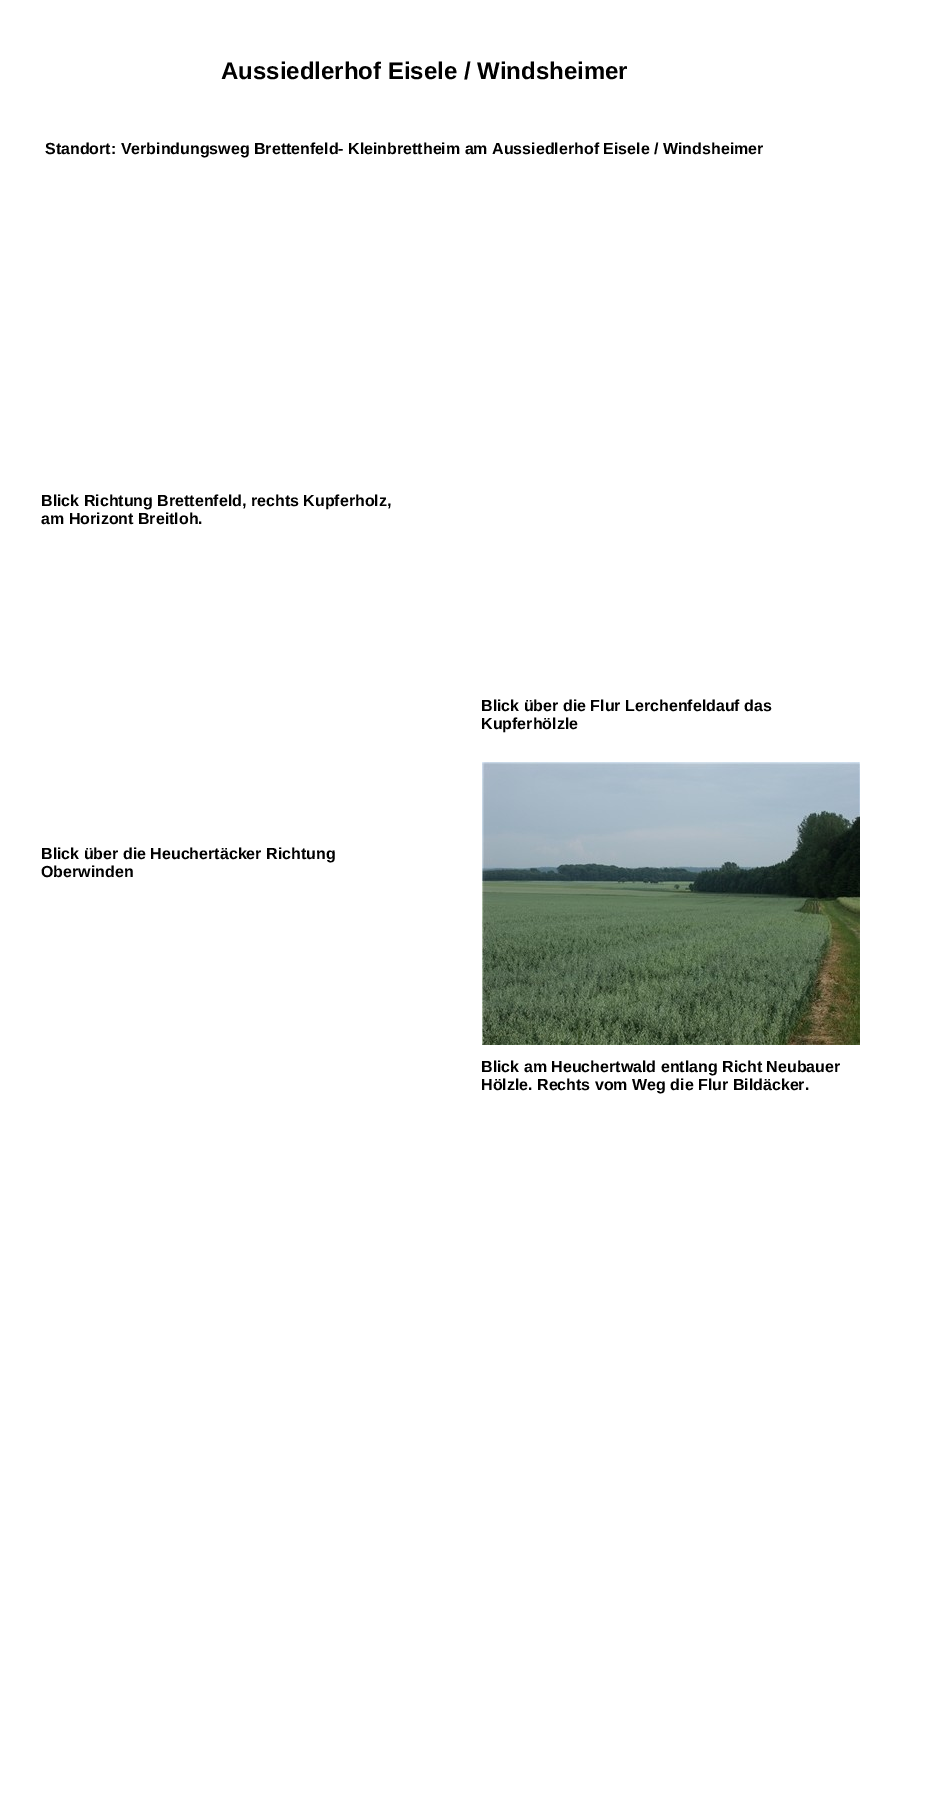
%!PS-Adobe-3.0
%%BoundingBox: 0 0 951 1795
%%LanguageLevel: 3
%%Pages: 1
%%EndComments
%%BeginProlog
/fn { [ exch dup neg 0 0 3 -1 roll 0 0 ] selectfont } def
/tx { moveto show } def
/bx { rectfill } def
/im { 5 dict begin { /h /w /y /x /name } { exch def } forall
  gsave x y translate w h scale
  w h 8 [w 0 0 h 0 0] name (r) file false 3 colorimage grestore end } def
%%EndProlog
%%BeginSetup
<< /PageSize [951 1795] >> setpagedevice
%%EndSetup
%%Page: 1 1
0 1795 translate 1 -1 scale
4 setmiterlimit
1 setgray
0 0 951 1795 bx
/LiberationSans-Bold 24 fn
0 setgray
(Aussiedlerhof Eisele / Windsheimer) 221 79 tx
/LiberationSans-Bold 16 fn
(Standort: Verbindungsweg Brettenfeld- Kleinbrettheim am Aussiedlerhof Eisele / Windsheimer) 45 154 tx
(Blick Richtung Brettenfeld, rechts Kupferholz,) 41 506 tx
(am Horizont Breitloh.) 41 524 tx
(Blick über die Flur Lerchenfeldauf das) 481 711 tx
(Kupferhölzle) 481 729 tx
(Blick über die Heuchertäcker Richtung) 41 859 tx
(Oberwinden) 41 877 tx
(image0.raw) 482 762 378 283 im
(Blick am Heuchertwald entlang Richt Neubauer) 481 1072 tx
(Hölzle. Rechts vom Weg die Flur Bildäcker.) 481 1090 tx
showpage
%%EOF
